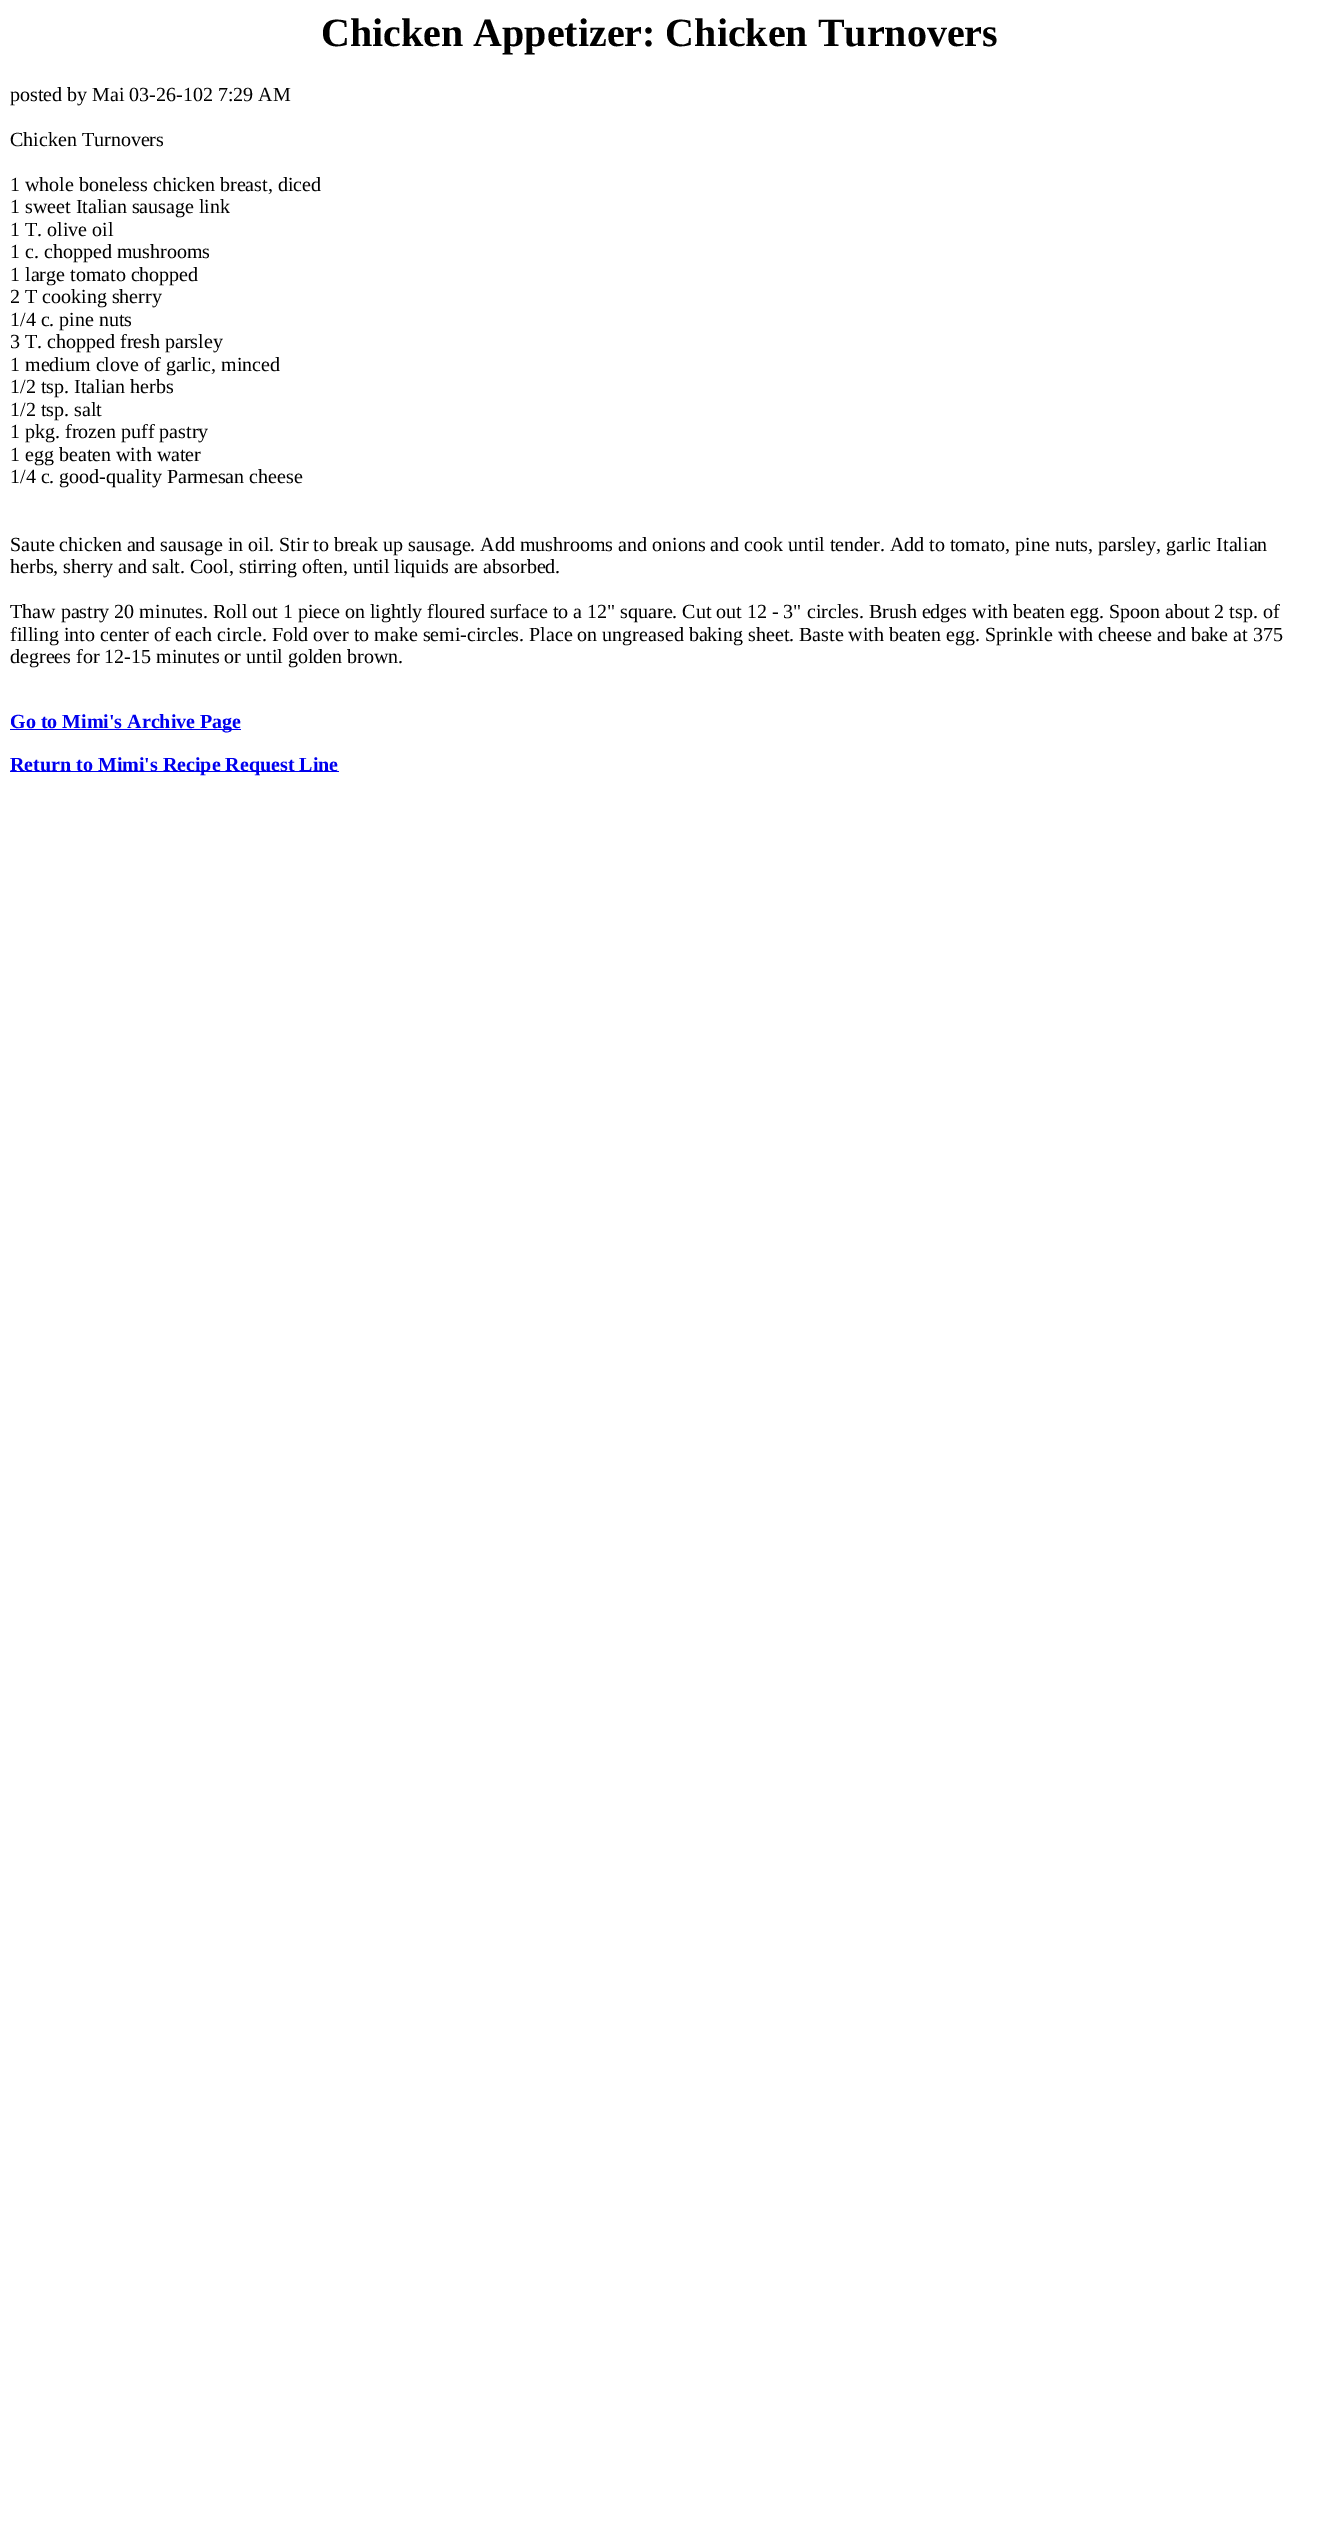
%!PS-Adobe-3.0
%%BoundingBox: 0 0 1318 2525
%%LanguageLevel: 3
%%Pages: 1
%%EndComments
%%BeginProlog
/fn { [ exch dup neg 0 0 3 -1 roll 0 0 ] selectfont } def
/tx { moveto show } def
/bx { rectfill } def
%%EndProlog
%%BeginSetup
<< /PageSize [1318 2525] >> setpagedevice
%%EndSetup
%%Page: 1 1
0 2525 translate 1 -1 scale
4 setmiterlimit
1 setgray
0 0 1318 2525 bx
/LiberationSerif-Bold 40 fn
0 setgray
(Chicken Appetizer: Chicken Turnovers) 321 46 tx
/LiberationSerif-Regular 20 fn
(posted by Mai 03-26-102 7:29 AM) 10 101 tx
(Chicken Turnovers) 10 146 tx
(1 whole boneless chicken breast, diced) 10 191 tx
(1 sweet Italian sausage link) 10 213 tx
(1 T. olive oil) 10 236 tx
(1 c. chopped mushrooms) 10 258 tx
(1 large tomato chopped) 10 281 tx
(2 T cooking sherry) 10 303 tx
(1/4 c. pine nuts) 10 326 tx
(3 T. chopped fresh parsley) 10 348 tx
(1 medium clove of garlic, minced) 10 371 tx
(1/2 tsp. Italian herbs) 10 393 tx
(1/2 tsp. salt) 10 416 tx
(1 pkg. frozen puff pastry) 10 438 tx
(1 egg beaten with water) 10 461 tx
(1/4 c. good-quality Parmesan cheese) 10 483 tx
(Saute chicken and sausage in oil. Stir to break up sausage. Add mushrooms and onions and cook until tender. Add to tomato, pine nuts, parsley, garlic Italian) 10 551 tx
(herbs, sherry and salt. Cool, stirring often, until liquids are absorbed.) 10 573 tx
(Thaw pastry 20 minutes. Roll out 1 piece on lightly floured surface to a 12" square. Cut out 12 - 3" circles. Brush edges with beaten egg. Spoon about 2 tsp. of) 10 618 tx
(filling into center of each circle. Fold over to make semi-circles. Place on ungreased baking sheet. Baste with beaten egg. Sprinkle with cheese and bake at 375) 10 641 tx
(degrees for 12-15 minutes or until golden brown.) 10 663 tx
0 0 0.933 setrgbcolor
10 729 231 1 bx
/LiberationSerif-Bold 20 fn
(Go to Mimi's Archive Page) 10 728 tx
10 771 329 1 bx
(Return to Mimi's Recipe Request Line) 10 771 tx
showpage
%%EOF
